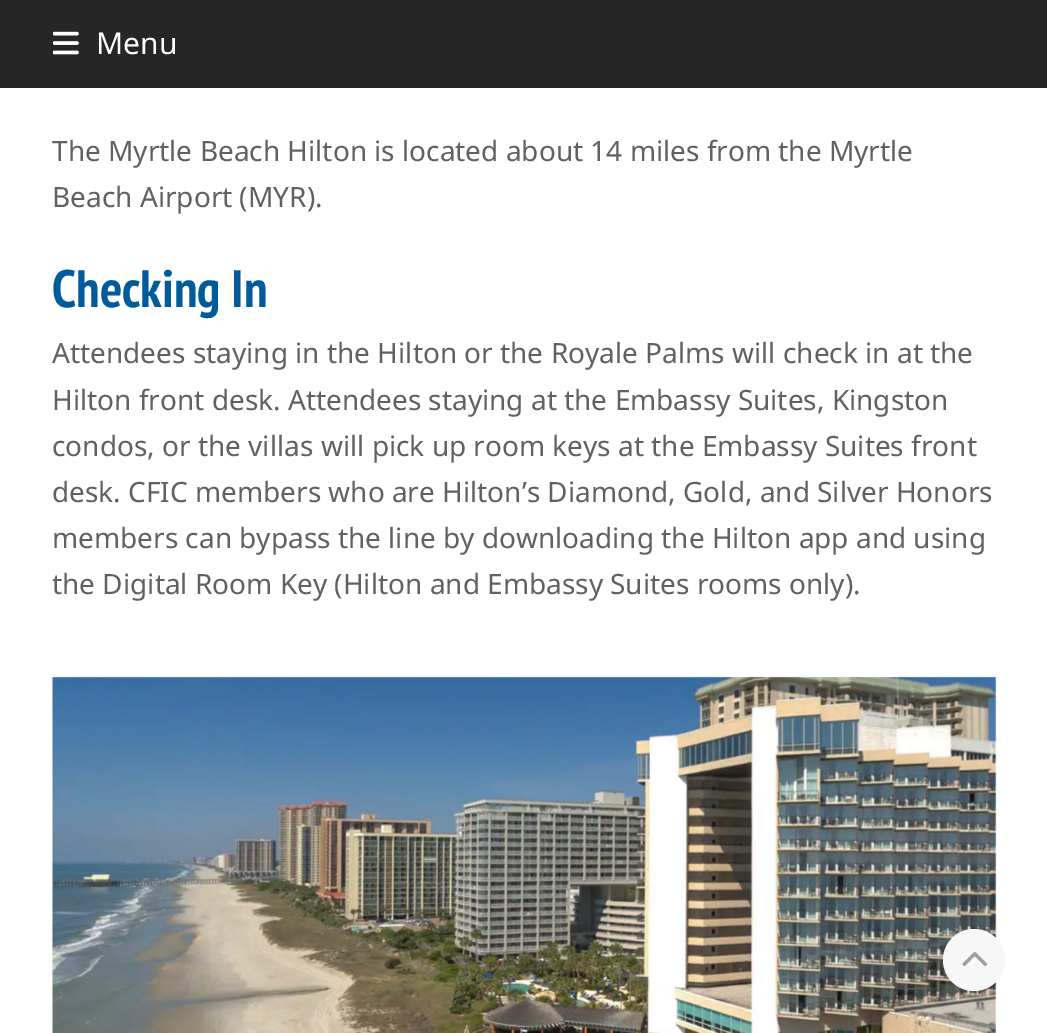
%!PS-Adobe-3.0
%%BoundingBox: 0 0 1047 1033
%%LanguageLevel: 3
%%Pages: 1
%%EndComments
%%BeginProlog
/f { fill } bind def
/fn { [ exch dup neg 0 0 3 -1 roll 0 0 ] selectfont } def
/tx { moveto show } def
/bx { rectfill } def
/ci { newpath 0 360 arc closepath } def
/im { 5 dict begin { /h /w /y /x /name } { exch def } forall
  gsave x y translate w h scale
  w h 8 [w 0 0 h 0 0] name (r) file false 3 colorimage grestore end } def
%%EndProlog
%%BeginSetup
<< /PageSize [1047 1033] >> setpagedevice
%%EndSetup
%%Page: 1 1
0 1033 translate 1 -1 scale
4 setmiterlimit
1 setgray
0 0 1047 1033 bx
0.149 setgray
0 0 1047 88 bx
(image0.raw) 53 31 26 24 im
/NotoSans-Regular 30 fn
1 setgray
(Menu) 96 54 tx
/NotoSans-Regular 28 fn
0.38 setgray
(The Myrtle Beach Hilton is located about 14 miles from the Myrtle) 52 161 tx
(Beach Airport \(MYR\).) 52 207 tx
/PTSansNarrow-Bold 52.5 fn
0 0.357 0.604 setrgbcolor
(Checking In) 52 307 tx
/NotoSans-Regular 28 fn
0.38 setgray
(Attendees staying in the Hilton or the Royale Palms will check in at the) 52 363 tx
(Hilton front desk. Attendees staying at the Embassy Suites, Kingston) 52 410 tx
(condos, or the villas will pick up room keys at the Embassy Suites front) 52 456 tx
(desk. CFIC members who are Hilton’s Diamond, Gold, and Silver Honors) 52 502 tx
(members can bypass the line by downloading the Hilton app and using) 52 548 tx
(the Digital Room Key \(Hilton and Embassy Suites rooms only\).) 52 594 tx
(image1.raw) 52 676 945 357 im
0.969 setgray
974 960 31 ci f
(image2.raw) 962 952 25 14 im
showpage
%%EOF
